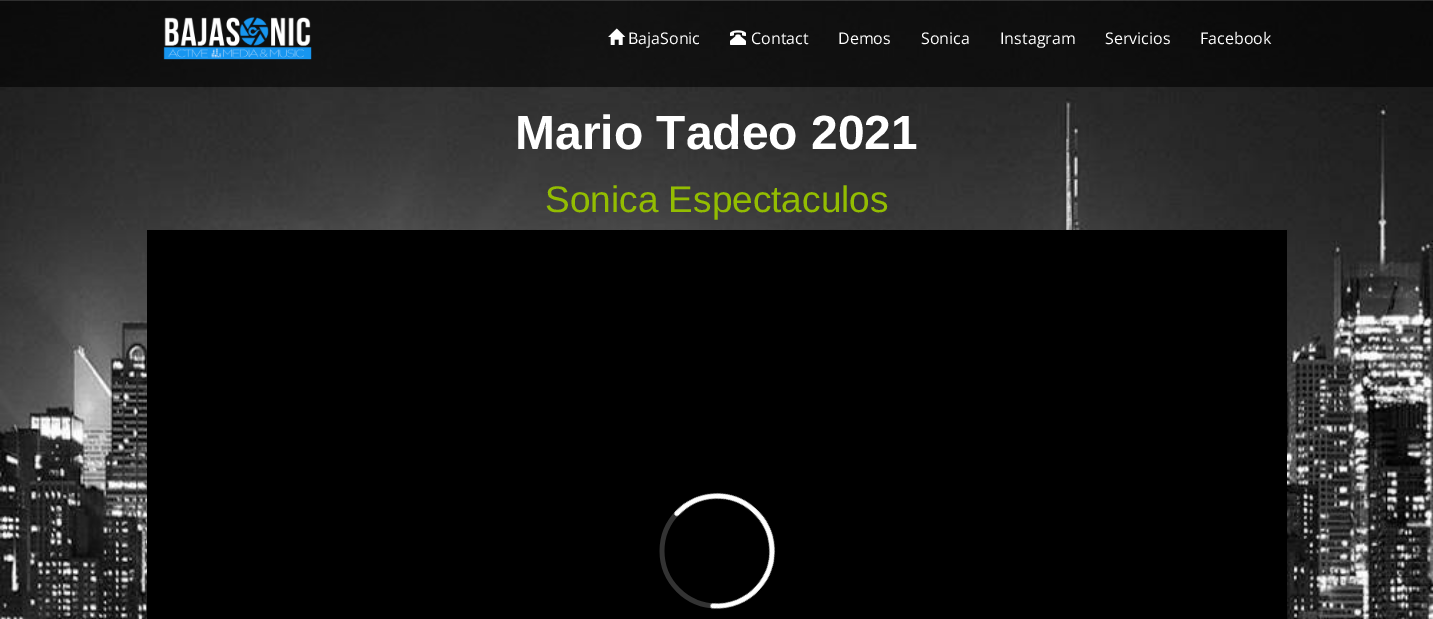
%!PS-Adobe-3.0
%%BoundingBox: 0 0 1433 619
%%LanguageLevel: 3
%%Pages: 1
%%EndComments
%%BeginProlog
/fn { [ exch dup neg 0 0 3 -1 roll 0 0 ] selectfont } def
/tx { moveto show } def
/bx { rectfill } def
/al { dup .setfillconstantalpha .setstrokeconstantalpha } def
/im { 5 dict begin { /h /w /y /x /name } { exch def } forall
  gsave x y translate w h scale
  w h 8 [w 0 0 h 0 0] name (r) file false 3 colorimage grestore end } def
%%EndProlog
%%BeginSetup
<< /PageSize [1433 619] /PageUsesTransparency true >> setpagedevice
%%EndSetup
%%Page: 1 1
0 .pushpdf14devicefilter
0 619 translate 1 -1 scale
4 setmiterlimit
1 setgray
0 0 1433 619 bx
(image0.raw) 0 0 1433 619 im
0.6 al
0 setgray
0 0 1433 87 bx
0.15 al
1 setgray
0 0 1433 1 bx
1 al
(image1.raw) 163 17 149 43 im
(image2.raw) 608 28 18 17 im
/OpenSans-Regular 16 fn
(BajaSonic) 628 44 tx
(image3.raw) 730 30 16 15 im
(Contact) 751 44 tx
(Demos) 838 44 tx
(Sonica) 921 44 tx
(Instagram) 1000 44 tx
(Servicios) 1105 44 tx
(Facebook) 1200 44 tx
/LiberationSans-Bold 48 fn
(Mario Tadeo 2021) 515 149 tx
/LiberationSans-Regular 37 fn
0.576 0.741 0.004 setrgbcolor
(Sonica Espectaculos) 545 212 tx
(image4.raw) 147 230 1140 389 im
.poppdf14devicefilter showpage
%%EOF
